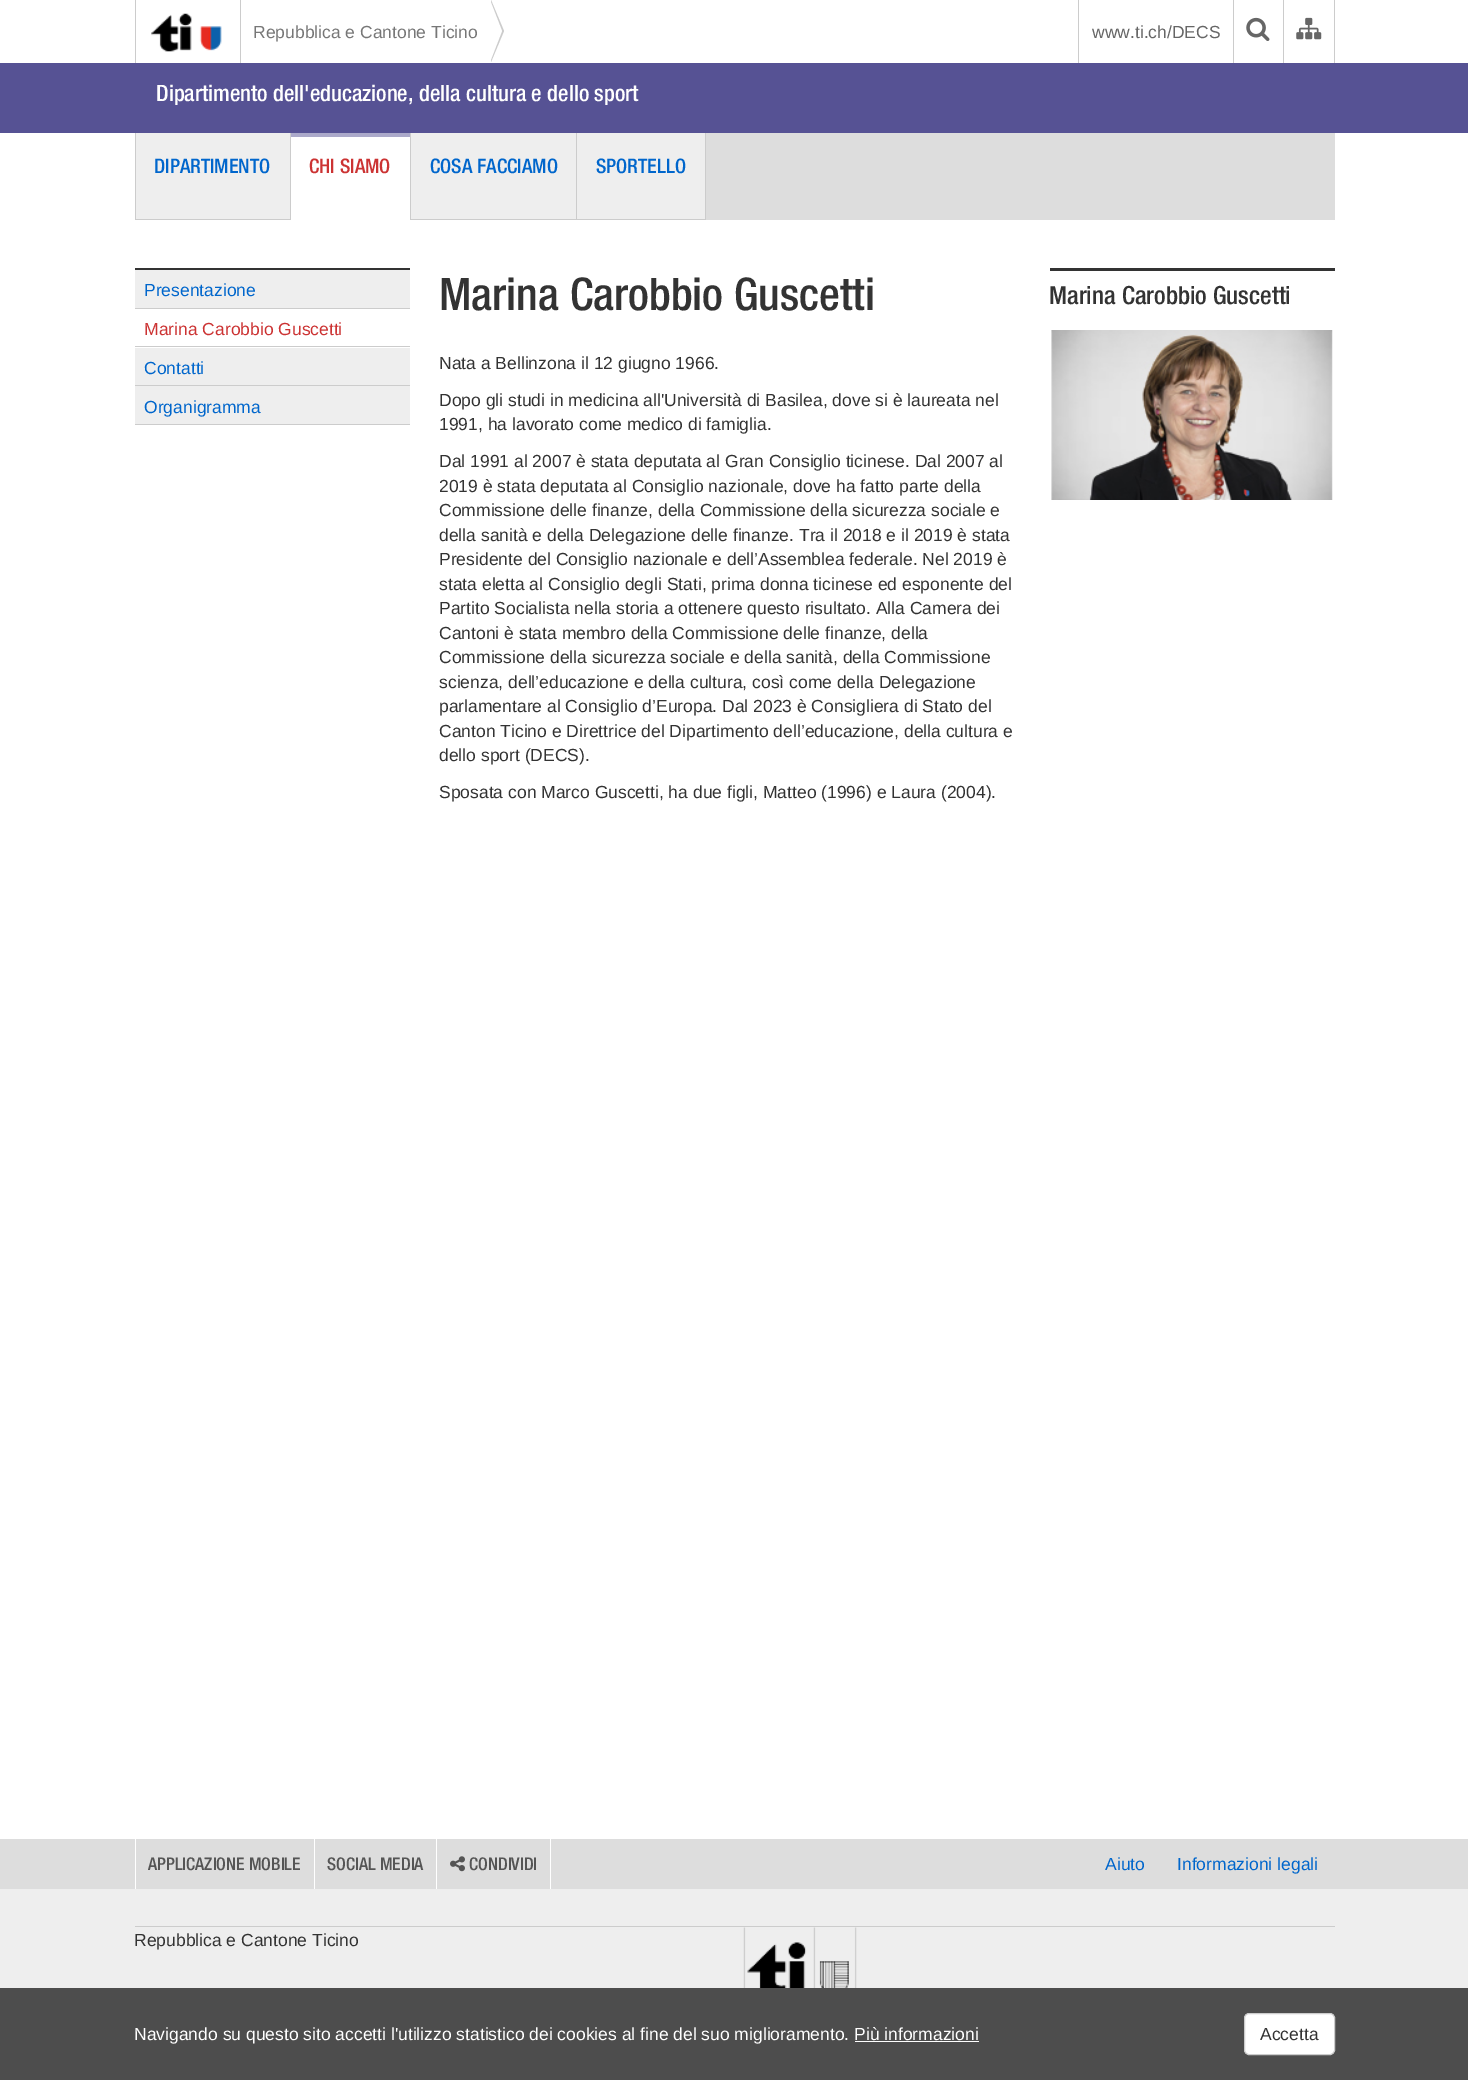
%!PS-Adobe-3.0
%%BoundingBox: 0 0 1468 2080
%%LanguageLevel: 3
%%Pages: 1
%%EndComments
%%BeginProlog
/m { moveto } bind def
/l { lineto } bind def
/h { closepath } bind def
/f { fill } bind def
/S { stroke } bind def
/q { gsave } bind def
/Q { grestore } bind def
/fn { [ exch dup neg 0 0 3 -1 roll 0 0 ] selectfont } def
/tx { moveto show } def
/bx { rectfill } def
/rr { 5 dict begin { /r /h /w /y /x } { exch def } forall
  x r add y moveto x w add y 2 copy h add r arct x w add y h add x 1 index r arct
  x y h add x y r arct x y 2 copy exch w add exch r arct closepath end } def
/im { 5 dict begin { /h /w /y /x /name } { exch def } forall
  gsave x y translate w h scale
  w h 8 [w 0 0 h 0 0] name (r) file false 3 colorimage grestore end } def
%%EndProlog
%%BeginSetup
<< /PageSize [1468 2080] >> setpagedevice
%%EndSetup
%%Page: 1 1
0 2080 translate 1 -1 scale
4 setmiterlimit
1 setgray
0 0 1468 2080 bx
0.8 setgray
240 0 1 63 bx
135 0 1 63 bx
(image0.raw) 151 13 71 39 im
491 62 m 491 0 l 504 31 l h f
1 setgray
490 62 m 490 0 l 502 31 l h f
/LiberationSans-Regular 17.5 fn
0.467 setgray
(Repubblica e Cantone Ticino) 253 38 tx
0.8 setgray
1334 0 1 63 bx
1078 0 1 63 bx
0.4 setgray
(www.ti.ch/DECS) 1092 38 tx
0.8 setgray
1233 0 1 63 bx
(image1.raw) 1246 17 24 24 im
1283 0 1 63 bx
(image2.raw) 1296 17 26 23 im
0.337 0.322 0.58 setrgbcolor
0 63 1468 70 bx
/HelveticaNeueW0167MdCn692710-Regular 22.5 fn
1 setgray
(Dipartimento dell'educazione, della cultura e dello sport) 156 101 tx
0.867 setgray
706 133 629 87 bx
0.8 setgray
135 133 1 87 bx
0.933 setgray
136 133 154 86 bx
0.8 setgray
290 133 1 87 bx
136 219 155 1 bx
/HelveticaNeueW0167MdCn692710-Regular 20 fn
0 0.4 0.8 setrgbcolor
(DIPARTIMENTO) 154 173 tx
0.8 setgray
410 133 1 87 bx
0.671 0.663 0.792 setrgbcolor
291 133 119 4 bx
0.8 0.2 0.2 setrgbcolor
(CHI SIAMO) 309 173 tx
0.933 setgray
411 133 294 86 bx
0.8 setgray
576 133 1 87 bx
411 219 167 1 bx
0 0.4 0.8 setrgbcolor
(COSA FACCIAMO) 430 173 tx
0.8 setgray
705 133 1 87 bx
578 219 128 1 bx
0 0.4 0.8 setrgbcolor
(SPORTELLO) 596 173 tx
0.2 setgray
135 268 275 2 bx
0.8 setgray
135 308 275 1 bx
0.933 setgray
135 270 275 38 bx
/LiberationSans-Regular 17.5 fn
0 0.4 0.8 setrgbcolor
(Presentazione) 144 296 tx
0.8 setgray
135 346 275 1 bx
0.8 0.2 0.2 setrgbcolor
(Marina Carobbio Guscetti) 144 335 tx
0.8 setgray
135 385 275 1 bx
0.933 setgray
135 348 275 37 bx
0 0.4 0.8 setrgbcolor
(Contatti) 144 374 tx
0.8 setgray
135 424 275 1 bx
0.933 setgray
135 386 275 38 bx
0 0.4 0.8 setrgbcolor
(Organigramma) 144 413 tx
/HelveticaNeueW0167MdCn692710-Regular 45 fn
0.2 setgray
(Marina Carobbio Guscetti) 439 310 tx
/LiberationSans-Regular 17.5 fn
(Nata a Bellinzona il 12 giugno 1966.) 439 369 tx
(Dopo gli studi in medicina all'Università di Basilea, dove si è laureata nel) 439 406 tx
(1991, ha lavorato come medico di famiglia.) 439 430 tx
(Dal 1991 al 2007 è stata deputata al Gran Consiglio ticinese. Dal 2007 al) 439 467 tx
(2019 è stata deputata al Consiglio nazionale, dove ha fatto parte della) 439 492 tx
(Commissione delle finanze, della Commissione della sicurezza sociale e) 439 516 tx
(della sanità e della Delegazione delle finanze. Tra il 2018 e il 2019 è stata) 439 541 tx
(Presidente del Consiglio nazionale e dell’Assemblea federale. Nel 2019 è) 439 565 tx
(stata eletta al Consiglio degli Stati, prima donna ticinese ed esponente del) 439 590 tx
(Partito Socialista nella storia a ottenere questo risultato. Alla Camera dei) 439 614 tx
(Cantoni è stata membro della Commissione delle finanze, della) 439 639 tx
(Commissione della sicurezza sociale e della sanità, della Commissione) 439 663 tx
(scienza, dell’educazione e della cultura, così come della Delegazione) 439 688 tx
(parlamentare al Consiglio d’Europa. Dal 2023 è Consigliera di Stato del) 439 712 tx
(Canton Ticino e Direttrice del Dipartimento dell’educazione, della cultura e) 439 737 tx
(dello sport \(DECS\).) 439 761 tx
(Sposata con Marco Guscetti, ha due figli, Matteo \(1996\) e Laura \(2004\).) 439 798 tx
1050 268 285 3 bx
/HelveticaNeueW0167MdCn692710-Regular 25 fn
(Marina Carobbio Guscetti) 1049 304 tx
(image3.raw) 1051 330 282 170 im
0.933 setgray
0 1889 1468 99 bx
0.867 setgray
0 1839 1468 50 bx
1 setgray
314 1839 1 50 bx
135 1839 1 50 bx
/HelveticaNeueW0167MdCn692710-Regular 17.5 fn
0.333 setgray
(APPLICAZIONE MOBILE) 148 1870 tx
1 setgray
436 1839 1 50 bx
0.333 setgray
(SOCIAL MEDIA) 327 1870 tx
1 setgray
550 1839 1 50 bx
(image4.raw) 450 1856 15 16 im
0.333 setgray
(CONDIVIDI) 469 1870 tx
/LiberationSans-Regular 17.5 fn
0 0.4 0.8 setrgbcolor
(Aiuto) 1105 1870 tx
(Informazioni legali) 1177 1870 tx
(image5.raw) 743 1927 114 61 im
0.8 setgray
135 1926 1200 1 bx
0.2 setgray
(Repubblica e Cantone Ticino) 134 1946 tx
0.302 setgray
0 1988 1468 92 bx
1 setgray
(Navigando su questo sito accetti l'utilizzo statistico dei cookies al fine del suo miglioramento. Più informazioni) 134 2040 tx
855 2041 124 1 bx
1244.5 2013.5 90 41 4.5 rr q f Q
0.8 setgray
S
0.2 setgray
(Accetta) 1260 2040 tx
showpage
%%EOF
